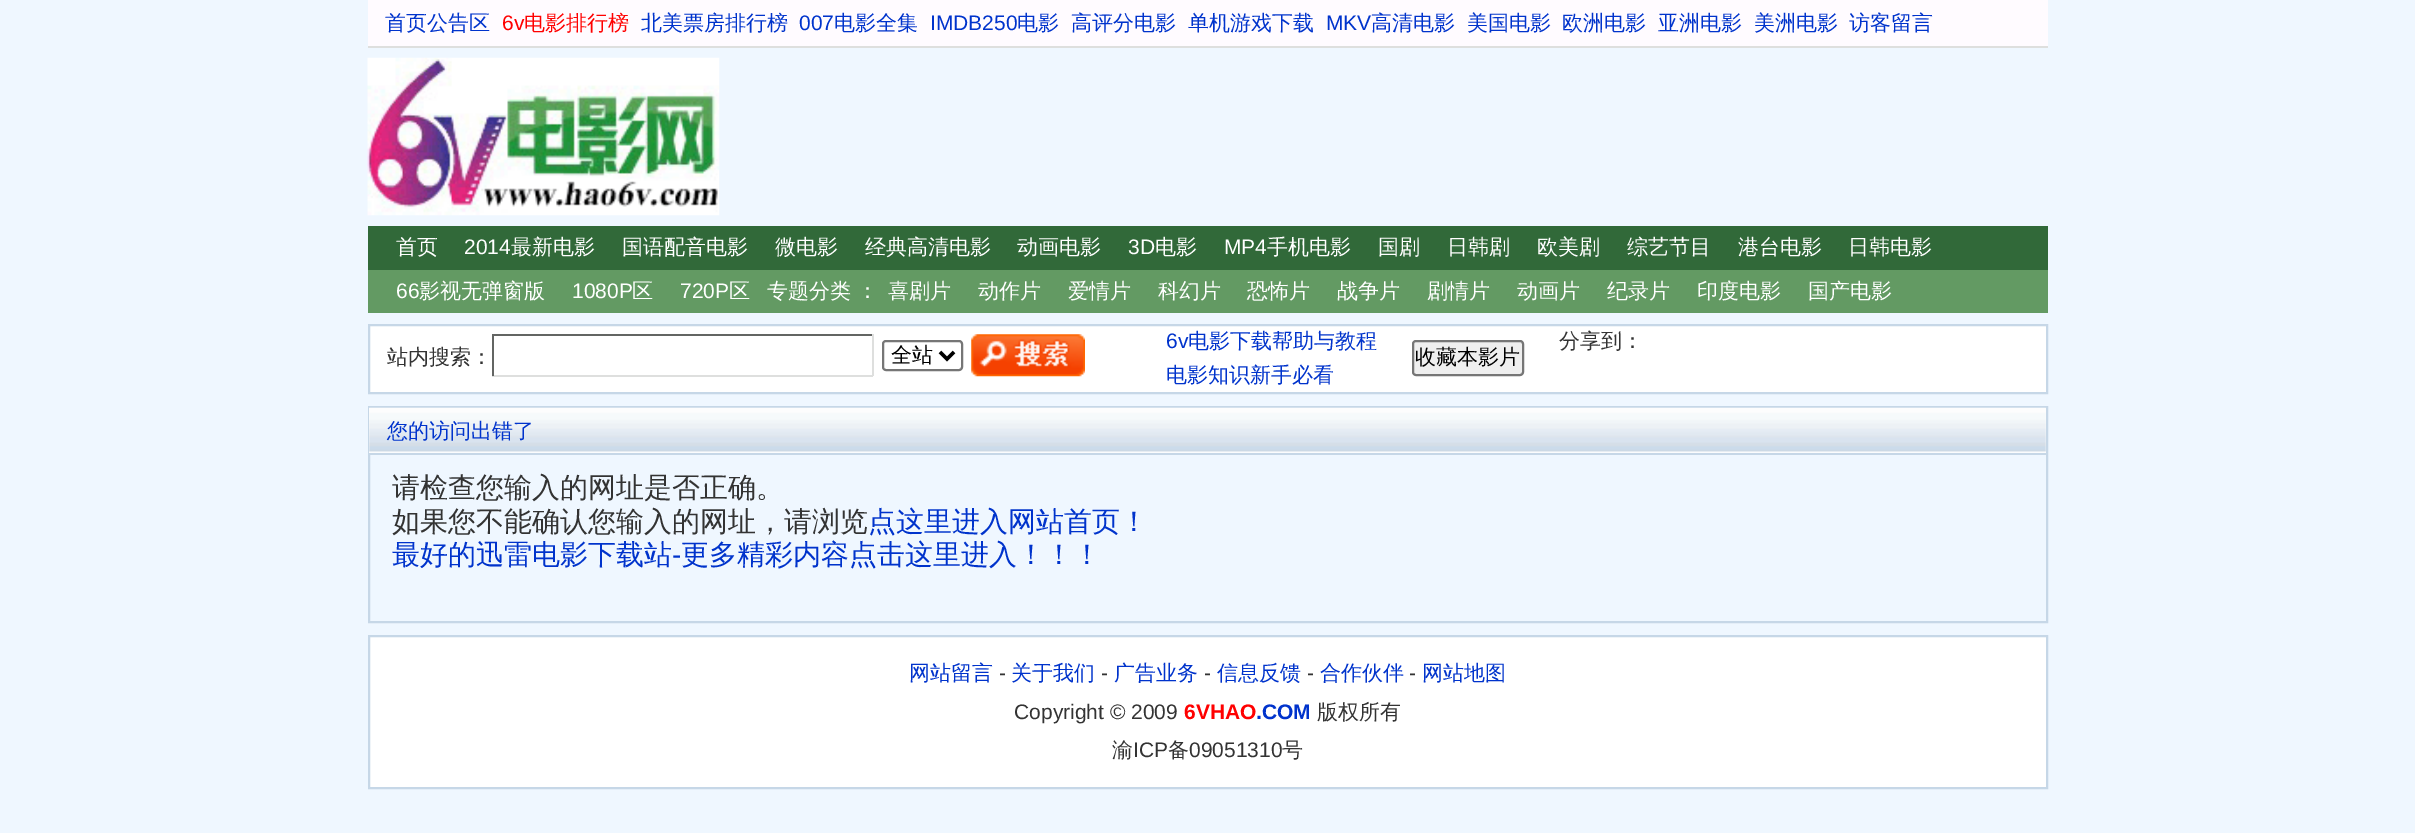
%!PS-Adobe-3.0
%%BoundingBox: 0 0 2415 833
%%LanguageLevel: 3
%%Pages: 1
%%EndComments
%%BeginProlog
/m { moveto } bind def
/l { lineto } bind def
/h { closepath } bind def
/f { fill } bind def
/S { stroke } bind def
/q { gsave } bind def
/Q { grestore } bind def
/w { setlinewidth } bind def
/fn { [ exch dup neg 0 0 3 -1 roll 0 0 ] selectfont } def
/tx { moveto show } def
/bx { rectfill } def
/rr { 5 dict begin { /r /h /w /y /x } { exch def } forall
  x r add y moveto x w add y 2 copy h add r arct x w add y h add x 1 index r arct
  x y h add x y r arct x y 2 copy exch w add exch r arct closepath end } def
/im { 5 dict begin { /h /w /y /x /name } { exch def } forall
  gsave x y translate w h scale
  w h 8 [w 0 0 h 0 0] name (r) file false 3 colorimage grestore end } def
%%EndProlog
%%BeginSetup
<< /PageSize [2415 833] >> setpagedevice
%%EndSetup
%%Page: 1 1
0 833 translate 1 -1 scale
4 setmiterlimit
0.937 0.969 1 setrgbcolor
0 0 2415 833 bx
1 0.984 1 setrgbcolor
368 0 1680 46 bx
0.871 0.875 0.871 setrgbcolor
368 46 1680 2 bx
/WenQuanYiZenHei-Medium 21 fn
0 0.2 0.8 setrgbcolor
(首页公告区) 385 30 tx
/LiberationSans-Regular 21 fn
1 0 0 setrgbcolor
(6v) 502 30 tx
/WenQuanYiZenHei-Medium 21 fn
(电影排行榜) 524 30 tx
0 0.2 0.8 setrgbcolor
(北美票房排行榜) 641 30 tx
/LiberationSans-Regular 21 fn
(007) 799 30 tx
/WenQuanYiZenHei-Medium 21 fn
(电影全集) 834 30 tx
/LiberationSans-Regular 21 fn
(IMDB250) 930 30 tx
/WenQuanYiZenHei-Medium 21 fn
(电影) 1017 30 tx
(高评分电影) 1071 30 tx
(单机游戏下载) 1188 30 tx
/LiberationSans-Regular 21 fn
(MKV) 1326 30 tx
/WenQuanYiZenHei-Medium 21 fn
(高清电影) 1371 30 tx
(美国电影) 1467 30 tx
(欧洲电影) 1562 30 tx
(亚洲电影) 1658 30 tx
(美洲电影) 1754 30 tx
(访客留言) 1849 30 tx
(image0.raw) 367 57 353 159 im
0.192 0.412 0.224 setrgbcolor
368 226 1680 44 bx
1 setgray
(首页) 396 254 tx
/LiberationSans-Regular 21 fn
(2014) 464 254 tx
/WenQuanYiZenHei-Medium 21 fn
(最新电影) 511 254 tx
(国语配音电影) 622 254 tx
(微电影) 775 254 tx
(经典高清电影) 865 254 tx
(动画电影) 1017 254 tx
/LiberationSans-Regular 21 fn
(3D) 1128 254 tx
/WenQuanYiZenHei-Medium 21 fn
(电影) 1155 254 tx
/LiberationSans-Regular 21 fn
(MP4) 1224 254 tx
/WenQuanYiZenHei-Medium 21 fn
(手机电影) 1267 254 tx
(国剧) 1378 254 tx
(日韩剧) 1447 254 tx
(欧美剧) 1537 254 tx
(综艺节目) 1627 254 tx
(港台电影) 1738 254 tx
(日韩电影) 1848 254 tx
0.388 0.604 0.388 setrgbcolor
368 270 1680 43 bx
/LiberationSans-Regular 21 fn
1 setgray
(66) 396 298 tx
/WenQuanYiZenHei-Medium 21 fn
(影视无弹窗版) 419 298 tx
/LiberationSans-Regular 21 fn
(1080P) 572 298 tx
/WenQuanYiZenHei-Medium 21 fn
(区) 632 298 tx
/LiberationSans-Regular 21 fn
(720P) 680 298 tx
/WenQuanYiZenHei-Medium 21 fn
(区) 729 298 tx
(专题分类 ：) 767 298 tx
(喜剧片) 888 298 tx
(动作片) 978 298 tx
(爱情片) 1068 298 tx
(科幻片) 1158 298 tx
(恐怖片) 1247 298 tx
(战争片) 1337 298 tx
(剧情片) 1427 298 tx
(动画片) 1517 298 tx
(纪录片) 1607 298 tx
(印度电影) 1697 298 tx
(国产电影) 1808 298 tx
369 325 m 2047 325 l 2047 393 l 369 393 l h q f Q
0.776 0.843 0.906 setrgbcolor
2 w
S
/LiberationSans-Regular 21 fn
0 0.2 0.8 setrgbcolor
(6v) 1166 348 tx
/WenQuanYiZenHei-Medium 21 fn
(电影下载帮助与教程) 1188 348 tx
(电影知识新手必看) 1166 382 tx
0.2 setgray
(分享到：) 1559 348 tx
(站内搜索：) 387 364 tx
0.388 0.396 0.388 setrgbcolor
492 334 381 2 bx
0.871 0.875 0.871 setrgbcolor
872 334 2 42 bx
492 375 381 2 bx
0.388 0.396 0.388 setrgbcolor
492 334 2 42 bx
0.463 setgray
883 341 79 29 3 rr S
0 setgray
3.5 w
940 352 m 947 359 l 954 352 l S
(全站) 891 362 tx
(image1.raw) 971 334 114 43 im
0.937 setgray
1413 341 110 34 3 rr q f Q
0.463 setgray
2 w
S
0 setgray
(收藏本影片) 1415 364 tx
0.776 0.843 0.906 setrgbcolor
369 407 1678 215 rectstroke
(image2.raw) 369 407 1677 46 im
369 453 1677 2 bx
0 0.2 0.8 setrgbcolor
(您的访问出错了) 387 438 tx
/WenQuanYiZenHei-Medium 28 fn
0.2 setgray
(请检查您输入的网址是否正确。) 392 497 tx
(如果您不能确认您输入的网址，请浏览) 392 531 tx
0 0.2 0.8 setrgbcolor
(点这里进入网站首页！) 868 531 tx
(最好的迅雷电影下载站) 392 564 tx
/LiberationSans-Regular 28 fn
(-) 672 564 tx
/WenQuanYiZenHei-Medium 28 fn
(更多精彩内容点击这里进入！！！) 681 564 tx
1 setgray
369 636 m 2047 636 l 2047 788 l 369 788 l h q f Q
0.776 0.843 0.906 setrgbcolor
S
/WenQuanYiZenHei-Medium 21 fn
0 0.2 0.8 setrgbcolor
(网站留言) 909 680 tx
/LiberationSans-Regular 21 fn
0.2 setgray
(-) 999 680 tx
/WenQuanYiZenHei-Medium 21 fn
0 0.2 0.8 setrgbcolor
(关于我们) 1011 680 tx
/LiberationSans-Regular 21 fn
0.2 setgray
(-) 1101 680 tx
/WenQuanYiZenHei-Medium 21 fn
0 0.2 0.8 setrgbcolor
(广告业务) 1114 680 tx
/LiberationSans-Regular 21 fn
0.2 setgray
(-) 1204 680 tx
/WenQuanYiZenHei-Medium 21 fn
0 0.2 0.8 setrgbcolor
(信息反馈) 1217 680 tx
/LiberationSans-Regular 21 fn
0.2 setgray
(-) 1307 680 tx
/WenQuanYiZenHei-Medium 21 fn
0 0.2 0.8 setrgbcolor
(合作伙伴) 1320 680 tx
/LiberationSans-Regular 21 fn
0.2 setgray
(-) 1409 680 tx
/WenQuanYiZenHei-Medium 21 fn
0 0.2 0.8 setrgbcolor
(网站地图) 1422 680 tx
/LiberationSans-Regular 21 fn
0.2 setgray
(Copyright © 2009) 1014 719 tx
/LiberationSans-Bold 21 fn
1 0 0 setrgbcolor
(6VHAO) 1184 719 tx
0 0.2 0.8 setrgbcolor
(.COM) 1256 719 tx
/WenQuanYiZenHei-Medium 21 fn
0.2 setgray
(版权所有) 1317 719 tx
(渝) 1112 757 tx
/LiberationSans-Regular 21 fn
(ICP) 1133 757 tx
/WenQuanYiZenHei-Medium 21 fn
(备) 1168 757 tx
/LiberationSans-Regular 21 fn
(09051310) 1189 757 tx
/WenQuanYiZenHei-Medium 21 fn
(号) 1282 757 tx
showpage
%%EOF
